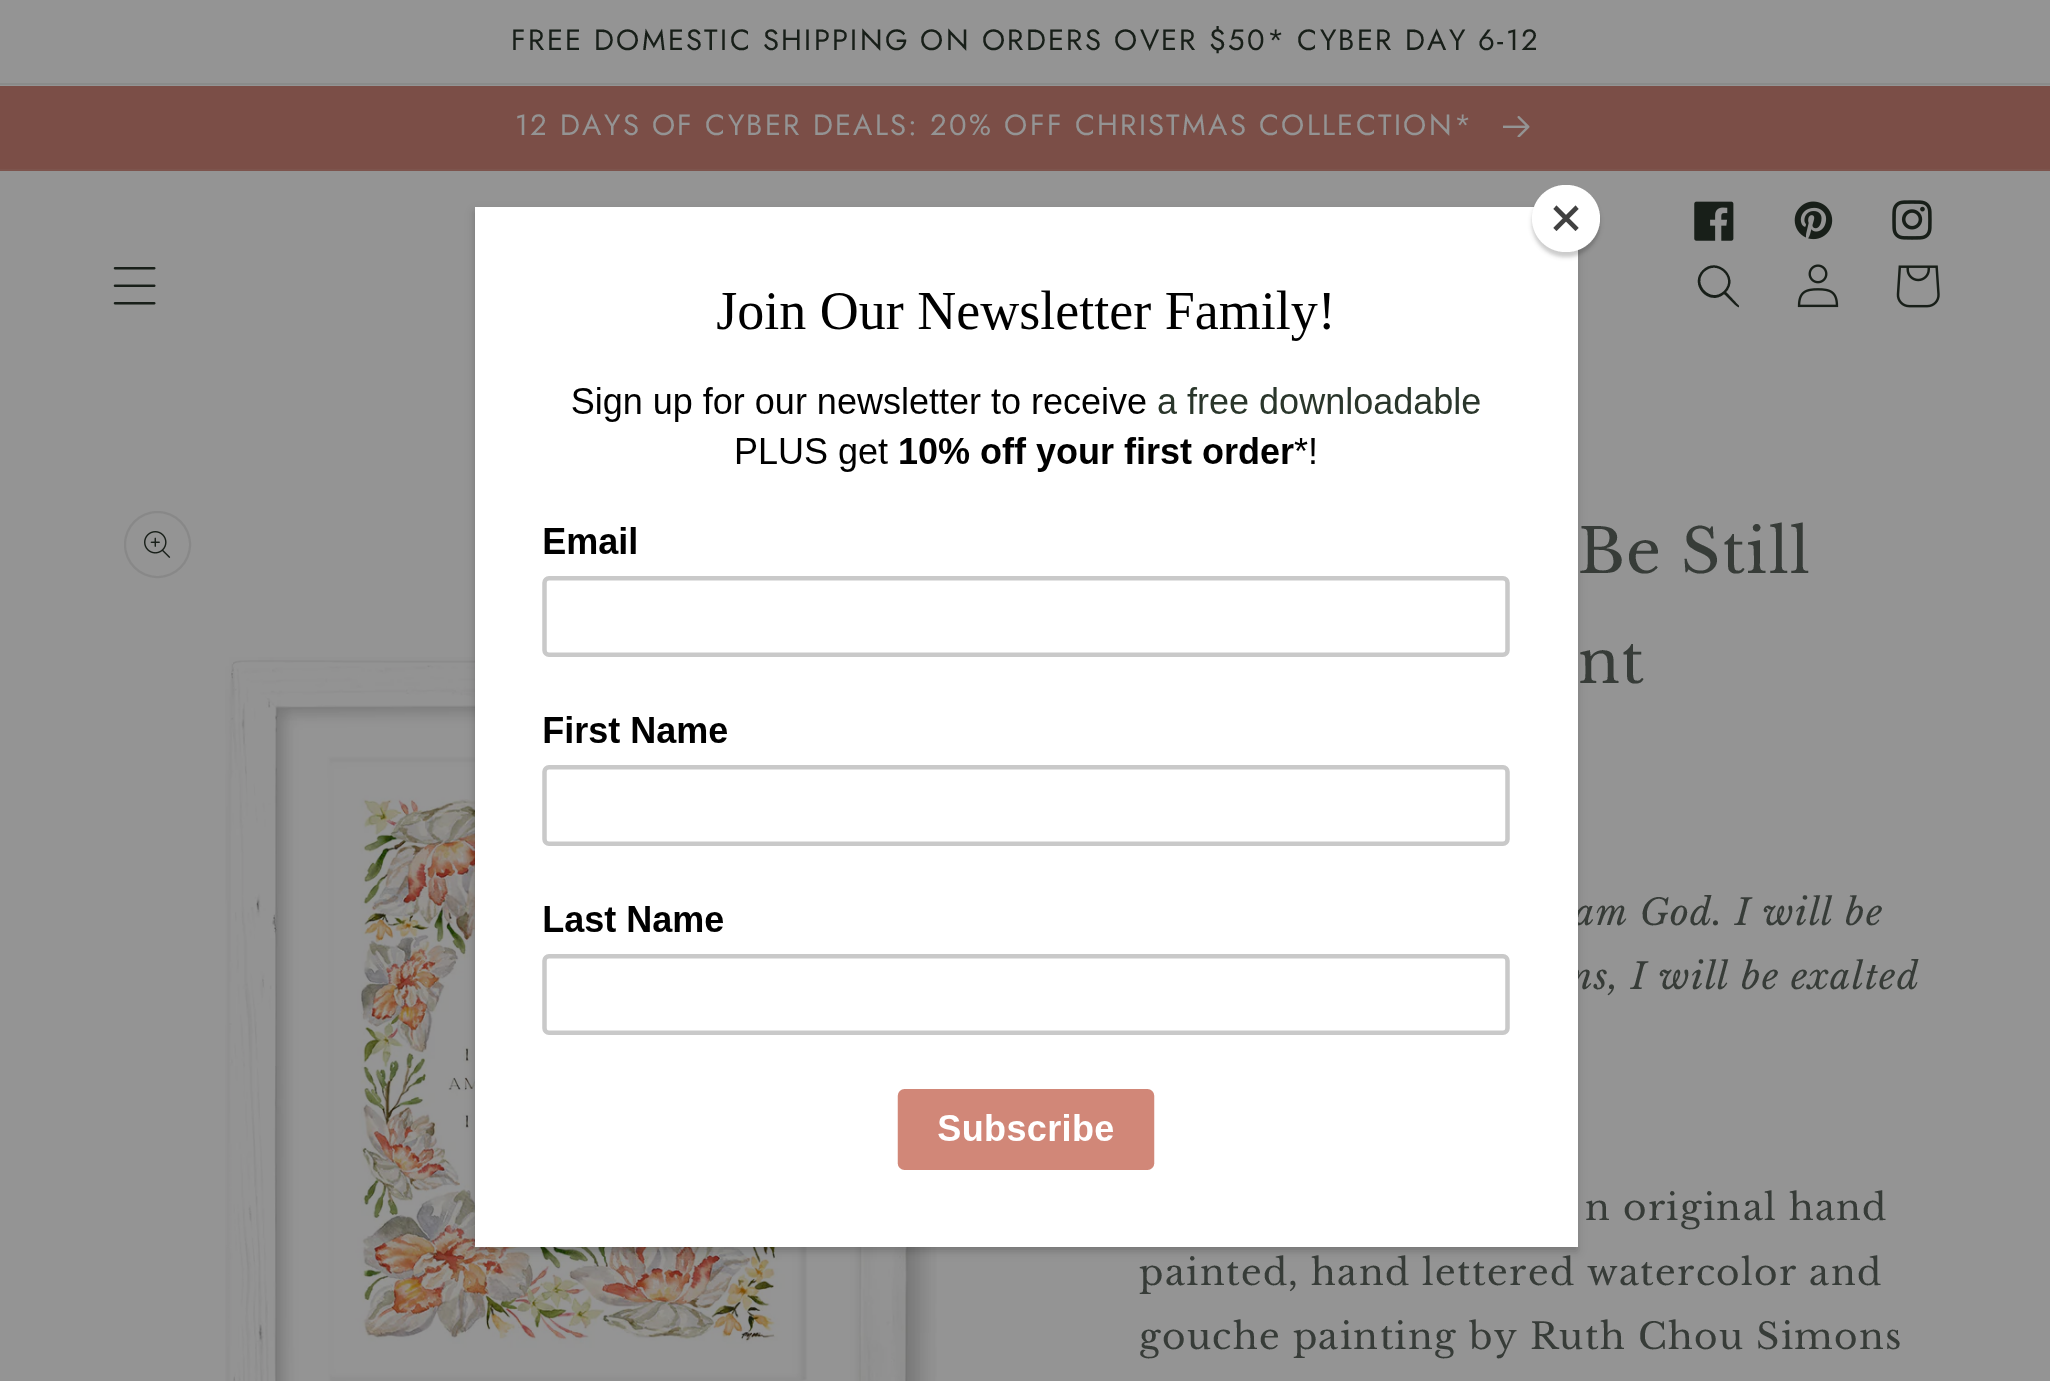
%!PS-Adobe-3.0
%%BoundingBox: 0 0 2050 1381
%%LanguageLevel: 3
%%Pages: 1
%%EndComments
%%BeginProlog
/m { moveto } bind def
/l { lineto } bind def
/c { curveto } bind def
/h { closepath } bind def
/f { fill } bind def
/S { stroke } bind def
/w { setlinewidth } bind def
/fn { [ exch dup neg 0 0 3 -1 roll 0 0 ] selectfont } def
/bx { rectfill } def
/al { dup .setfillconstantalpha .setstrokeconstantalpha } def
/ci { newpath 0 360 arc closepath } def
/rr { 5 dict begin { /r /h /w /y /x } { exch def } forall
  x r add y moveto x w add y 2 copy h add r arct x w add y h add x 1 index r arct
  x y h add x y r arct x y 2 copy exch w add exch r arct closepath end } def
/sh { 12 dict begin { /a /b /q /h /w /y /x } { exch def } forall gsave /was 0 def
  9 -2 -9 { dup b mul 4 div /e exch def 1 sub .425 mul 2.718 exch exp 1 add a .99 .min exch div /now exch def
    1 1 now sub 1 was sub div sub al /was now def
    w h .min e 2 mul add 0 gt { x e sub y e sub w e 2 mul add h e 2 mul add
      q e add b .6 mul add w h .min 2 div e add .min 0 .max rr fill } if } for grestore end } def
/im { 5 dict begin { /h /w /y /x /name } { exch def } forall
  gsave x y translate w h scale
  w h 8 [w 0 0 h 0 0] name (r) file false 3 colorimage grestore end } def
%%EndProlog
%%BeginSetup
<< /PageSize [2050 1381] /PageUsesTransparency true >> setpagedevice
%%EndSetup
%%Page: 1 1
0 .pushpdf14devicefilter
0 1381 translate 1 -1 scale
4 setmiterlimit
0.58 setgray
0 0 2050 1381 bx
0.541 0.545 0.541 setrgbcolor
0 83 2050 2 bx
/Jost-Regular 29.25 fn
0.094 0.122 0.098 setrgbcolor
511 50 m 2.25 0 (FREE DOMESTIC SHIPPING ON ORDERS OVER $50* CYBER DAY 6-12) ashow
0.482 0.306 0.278 setrgbcolor
0 86 2050 83 bx
0.49 0.329 0.302 setrgbcolor
0 169 2050 2 bx
0.58 setgray
515 135 m 2.25 0 (12 DAYS OF CYBER DEALS: 20% OFF CHRISTMAS COLLECTION*) ashow
(image0.raw) 1503 116 27 21 im
(image1.raw) 1694 201 40 40 im
(image2.raw) 1794 201 39 39 im
(image3.raw) 1892 200 40 40 im
(image9.raw) 225 657 712 724 im
0 setgray
475 212 1102 1039 0 4.5 0.2 sh
/LibreBaskerville-Italic 36 fn
0.216 0.235 0.22 setrgbcolor
1574 925 m 1.35 0 (am God. I will be) ashow
1570 989 m 1.35 0 (ns, I will be exalted) ashow
(image4.raw) 475 207 1103 1040 im
0 setgray
1532 189 68 68 34 2 0.2 sh
1 setgray
1532 185 68 67 33.5 rr f
0.255 setgray
1575.5 205.5 m 1578.5 209 l 1556.5 231 l 1553.5 228 l h f
1553.5 209 m 1556.5 205.5 l 1578.5 228 l 1575.5 231 l h f
(image5.raw) 113 267 43 38 im
0.094 0.122 0.098 setrgbcolor
1724 291 m 1711 304 1692 284 1704 272 c 1717 259 1737 278 1724 291 c h 1724 294 m 1709 307 1688 284 1703 270 c 1717 256 1740 277 1726 292 c 1739 306 l 1739 307 l 1737 308 1726 295 1724 294 c h eofill
(image6.raw) 1797 264 42 44 im
(image7.raw) 1896 265 44 43 im
0.533 setgray
2 w
157.5 544.5 32.5 ci S
(image8.raw) 144 531 27 27 im
/LibreBaskerville-Regular 61 fn
0.216 0.235 0.22 setrgbcolor
1578 573 m 1.35 0 (Be Still) ashow
1578 683 m 1.35 0 (nt) ashow
/LibreBaskerville-Regular 36 fn
1585 1220 m 1.35 0 (n original hand) ashow
1139 1285 m 1.35 0 (painted, hand lettered watercolor and) ashow
1139 1349 m 1.35 0 (gouche painting by Ruth Chou Simons) ashow
.poppdf14devicefilter showpage
%%EOF
